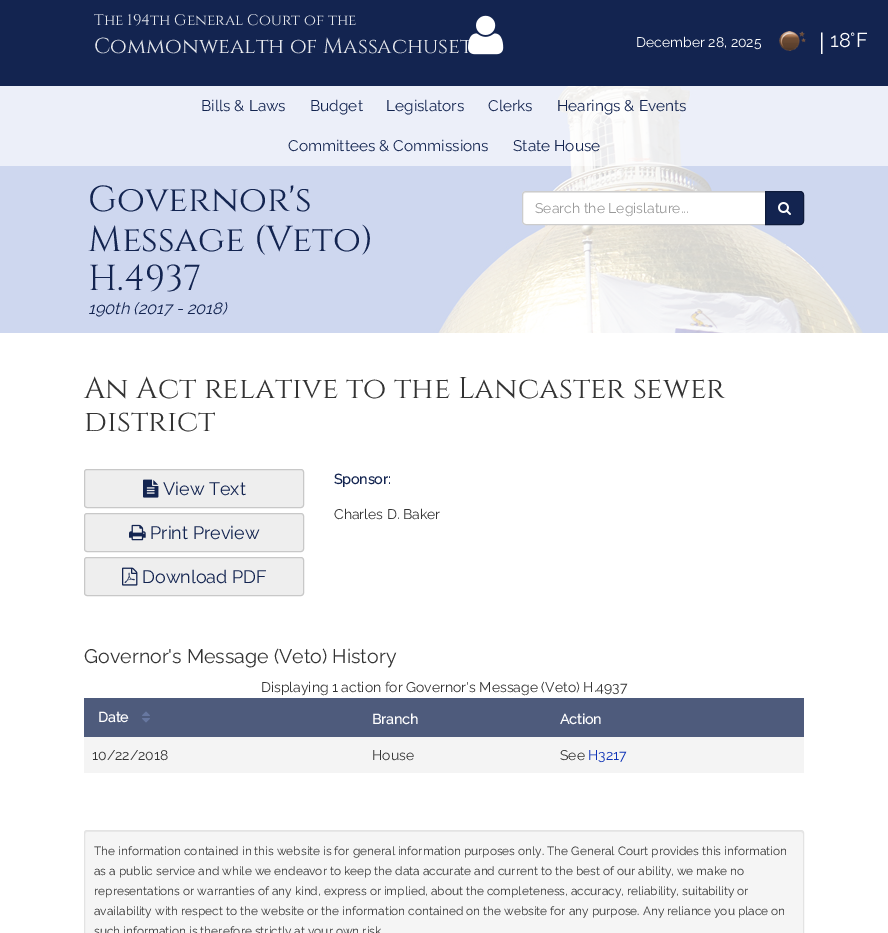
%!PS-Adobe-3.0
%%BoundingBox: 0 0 888 933
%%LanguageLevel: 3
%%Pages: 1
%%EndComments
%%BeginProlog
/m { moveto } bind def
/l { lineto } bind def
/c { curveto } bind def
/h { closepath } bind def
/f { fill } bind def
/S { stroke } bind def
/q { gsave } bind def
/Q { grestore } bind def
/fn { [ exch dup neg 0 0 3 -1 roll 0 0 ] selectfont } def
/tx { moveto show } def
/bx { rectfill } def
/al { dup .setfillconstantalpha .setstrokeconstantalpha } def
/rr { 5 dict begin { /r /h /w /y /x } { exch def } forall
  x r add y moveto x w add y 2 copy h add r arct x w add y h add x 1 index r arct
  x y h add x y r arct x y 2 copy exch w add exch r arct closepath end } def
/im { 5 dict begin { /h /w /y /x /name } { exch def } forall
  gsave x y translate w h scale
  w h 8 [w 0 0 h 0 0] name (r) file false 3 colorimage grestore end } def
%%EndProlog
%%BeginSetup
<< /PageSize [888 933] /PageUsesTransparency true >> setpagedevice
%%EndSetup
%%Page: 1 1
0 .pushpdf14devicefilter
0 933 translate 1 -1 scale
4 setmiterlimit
1 setgray
0 0 888 933 bx
(image0.raw) 0 86 888 247 im
0.075 0.141 0.314 setrgbcolor
0 0 888 86 bx
/Cinzel-Regular 15.4 fn
0.906 0.914 0.933 setrgbcolor
(The 194th General Court of the) 94 25 tx
/Cinzel-Regular 21.6 fn
(Commonwealth of Massachuset) 94 53 tx
(image1.raw) 468 15 36 40 im
/Raleway-Thin 14 fn
1 setgray
(December 28, 2025) 636 47 tx
(image2.raw) 779 31 27 20 im
/Raleway-Thin 24 fn
(|) 819 51 tx
/Raleway-Thin 20 fn
(18°F) 830 47 tx
0.9 al
0 86 888 80 bx
/Raleway-Thin 15.4 fn
1 al
0.075 0.141 0.314 setrgbcolor
(Bills & Laws) 201 111 tx
(Budget) 310 111 tx
(Legislators) 386 111 tx
(Clerks) 488 111 tx
(Hearings & Events) 557 111 tx
(Committees & Commissions) 288 151 tx
(State House) 513 151 tx
0.75 al
1 setgray
0 166 888 167 bx
/Cinzel-Regular 36 fn
1 al
0.075 0.141 0.314 setrgbcolor
(Governor's) 88 211 tx
(Message \(Veto\)) 88 251 tx
(H.4937) 88 290 tx
/Raleway-ThinItalic 16.25 fn
(190th \(2017 - 2018\)) 88 314 tx
1 setgray
526 191 m 766 191 l 766 225 l 526 225 l 524 225 522 223 522 221 c 522 195 l 522 193 524 191 526 191 c h f
0.925 setgray
526 193 m 765 193 l 765 192 l 526 192 l 524 192 523 194 523 196 c 523 194 524 193 526 193 c h f
0.8 setgray
526 191.5 m 765.5 191.5 l 765.5 224.5 l 526 224.5 l 524 224.5 522.5 223 522.5 221 c 522.5 195 l 522.5 193 524 191.5 526 191.5 c h S
/Raleway-Thin 14 fn
0.6 setgray
(Search the Legislature...) 535 213 tx
0.075 0.141 0.314 setrgbcolor
765.5 191.5 m 800 191.5 l 802 191.5 803.5 193 803.5 195 c 803.5 221 l 803.5 223 802 224.5 800 224.5 c 765.5 224.5 l h q f Q
0.055 0.106 0.231 setrgbcolor
S
(image3.raw) 778 202 13 13 im
/Cinzel-Regular 30 fn
0.2 setgray
(An Act relative to the Lancaster sewer) 84 398 tx
(district) 84 431 tx
0.933 setgray
84.5 469.5 219 38 2.5 rr q f Q
0.784 setgray
S
(image4.raw) 143 479 16 19 im
/Raleway-Thin 18 fn
0.075 0.141 0.314 setrgbcolor
(View Text) 163 495 tx
0.933 setgray
84.5 513.5 219 38 2.5 rr q f Q
0.784 setgray
S
(image5.raw) 129 524 17 17 im
0.075 0.141 0.314 setrgbcolor
(Print Preview) 150 539 tx
0.933 setgray
84.5 557.5 219 38 2.5 rr q f Q
0.784 setgray
S
(image6.raw) 122 567 16 19 im
0.075 0.141 0.314 setrgbcolor
(Download PDF) 142 583 tx
/Raleway-Bold 14 fn
(Sponsor:) 334 484 tx
/Raleway-Thin 14 fn
0.2 setgray
(Charles D. Baker) 334 519 tx
/Raleway-Thin 19.6 fn
(Governor's Message \(Veto\) History) 84 663 tx
/Raleway-Thin 14 fn
(Displaying 1 action for Governor's Message \(Veto\) H.4937) 261 692 tx
0.306 0.357 0.486 setrgbcolor
84 698 720 39 bx
/Raleway-Bold 14 fn
1 setgray
(Date) 98 722 tx
(image7.raw) 142 711 8 12 im
(Branch) 372 724 tx
(Action) 560 724 tx
0.957 setgray
84 737 720 36 bx
/Raleway-Thin 14 fn
0.2 setgray
(10/22/2018) 92 760 tx
(House) 372 760 tx
(See) 560 760 tx
0.051 0.196 0.714 setrgbcolor
(H3217) 588 760 tx
0.961 setgray
84 830 720 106 3 rr f
0.914 setgray
87 832 m 801 832 l 802 832 803 833 803 834 c 803 833 803 831 801 831 c 87 831 l 85 831 85 833 85 834 c 85 833 86 832 87 832 c h f
0.89 setgray
84.5 830.5 719 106 2.5 rr S
/Raleway-Thin 11.9 fn
0.2 setgray
(The information contained in this website is for general information purposes only. The General Court provides this information) 94 855 tx
(as a public service and while we endeavor to keep the data accurate and current to the best of our ability, we make no) 94 875 tx
(representations or warranties of any kind, express or implied, about the completeness, accuracy, reliability, suitability or) 94 895 tx
(availability with respect to the website or the information contained on the website for any purpose. Any reliance you place on) 94 915 tx
(such information is therefore strictly at your own risk) 94 935 tx
.poppdf14devicefilter showpage
%%EOF
